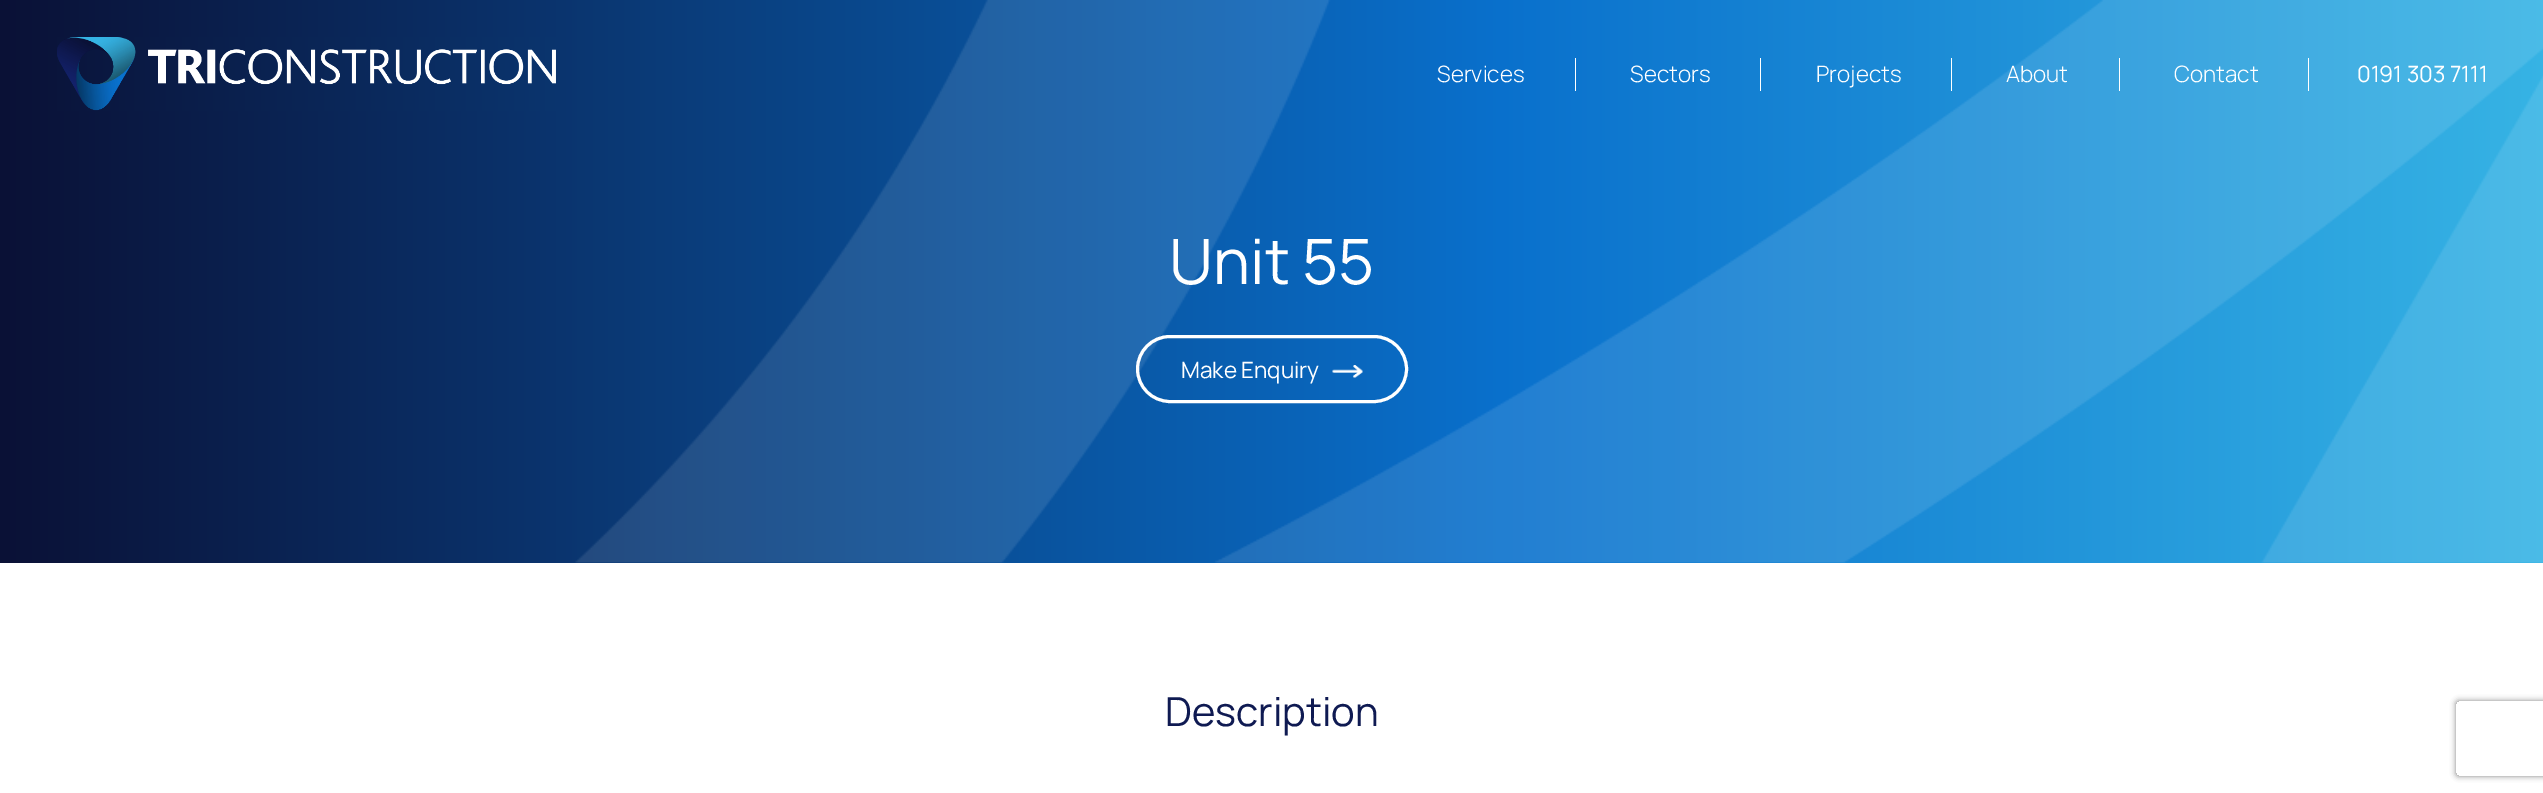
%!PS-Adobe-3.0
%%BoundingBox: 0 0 2543 793
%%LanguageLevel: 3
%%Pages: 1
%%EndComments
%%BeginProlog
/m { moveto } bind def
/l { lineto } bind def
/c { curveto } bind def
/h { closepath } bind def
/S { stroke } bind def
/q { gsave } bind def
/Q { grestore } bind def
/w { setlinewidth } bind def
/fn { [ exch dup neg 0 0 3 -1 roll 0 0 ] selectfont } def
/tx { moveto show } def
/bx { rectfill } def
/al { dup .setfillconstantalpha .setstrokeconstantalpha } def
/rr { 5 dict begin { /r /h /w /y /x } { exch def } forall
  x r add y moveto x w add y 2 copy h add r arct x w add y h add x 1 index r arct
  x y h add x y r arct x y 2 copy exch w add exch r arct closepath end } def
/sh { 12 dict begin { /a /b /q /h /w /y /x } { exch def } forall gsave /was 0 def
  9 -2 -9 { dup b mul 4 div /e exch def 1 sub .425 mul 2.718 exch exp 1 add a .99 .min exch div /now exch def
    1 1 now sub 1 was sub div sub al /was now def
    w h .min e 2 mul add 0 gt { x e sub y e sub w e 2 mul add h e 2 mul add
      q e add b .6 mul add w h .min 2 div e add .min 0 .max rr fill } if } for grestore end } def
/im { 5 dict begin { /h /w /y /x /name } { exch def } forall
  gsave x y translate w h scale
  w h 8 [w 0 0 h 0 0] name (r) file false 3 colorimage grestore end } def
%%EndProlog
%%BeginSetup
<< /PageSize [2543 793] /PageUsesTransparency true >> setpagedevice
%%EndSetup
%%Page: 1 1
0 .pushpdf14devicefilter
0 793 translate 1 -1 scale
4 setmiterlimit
1 setgray
0 0 2543 793 bx
q 0 0 m 2543 0 l 2543 563 l 0 563 l h clip newpath
<< /ShadingType 2 /ColorSpace /DeviceRGB /Coords [0 281 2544 281] /Extend [true true] /Function << /FunctionType 3 /Domain [0 1] /Functions [<< /FunctionType 2 /Domain [0 1] /C0 [0.039 0.067 0.212] /C1 [0.035 0.439 0.8] /N 1 >> << /FunctionType 2 /Domain [0 1] /C0 [0.035 0.439 0.8] /C1 [0.212 0.702 0.894] /N 1 >>] /Bounds [0.59] /Encode [0 1 0 1] >> >> shfill Q
(image0.raw) 57 37 499 74 im
(image1.raw) 575 0 1968 563 im
1575 58 1 33 bx
/Manrope-Light 22.5 fn
(Services) 1437 82 tx
1760 58 1 33 bx
(Sectors) 1630 82 tx
1951 58 1 33 bx
(Projects) 1816 82 tx
2119 58 1 33 bx
(About) 2006 82 tx
2308 58 1 33 bx
(Contact) 2174 82 tx
/Manrope-Regular 22.5 fn
(0191 303 7111) 2357 82 tx
/Manrope-Regular 62.5 fn
(Unit 55) 1169 284 tx
3 w
1137.5 336.5 269 65 32.5 rr S
/Manrope-Regular 22.5 fn
(Make Enquiry) 1181 378 tx
(image2.raw) 1332 365 31 13 im
/Manrope-Regular 40 fn
0.059 0.102 0.322 setrgbcolor
(Description) 1165 726 tx
q
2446 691 m 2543 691 l 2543 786 l 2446 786 l h 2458.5 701 m 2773.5 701 l 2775 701 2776 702 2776 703.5 c 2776 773.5 l 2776 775 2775 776 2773.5 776 c 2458.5 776 l 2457 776 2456 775 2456 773.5 c 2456 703.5 l 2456 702 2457 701 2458.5 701 c h eoclip newpath
0.502 setgray
2456 701 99 75 2.5 3 1 sh
Q
.poppdf14devicefilter showpage
%%EOF
